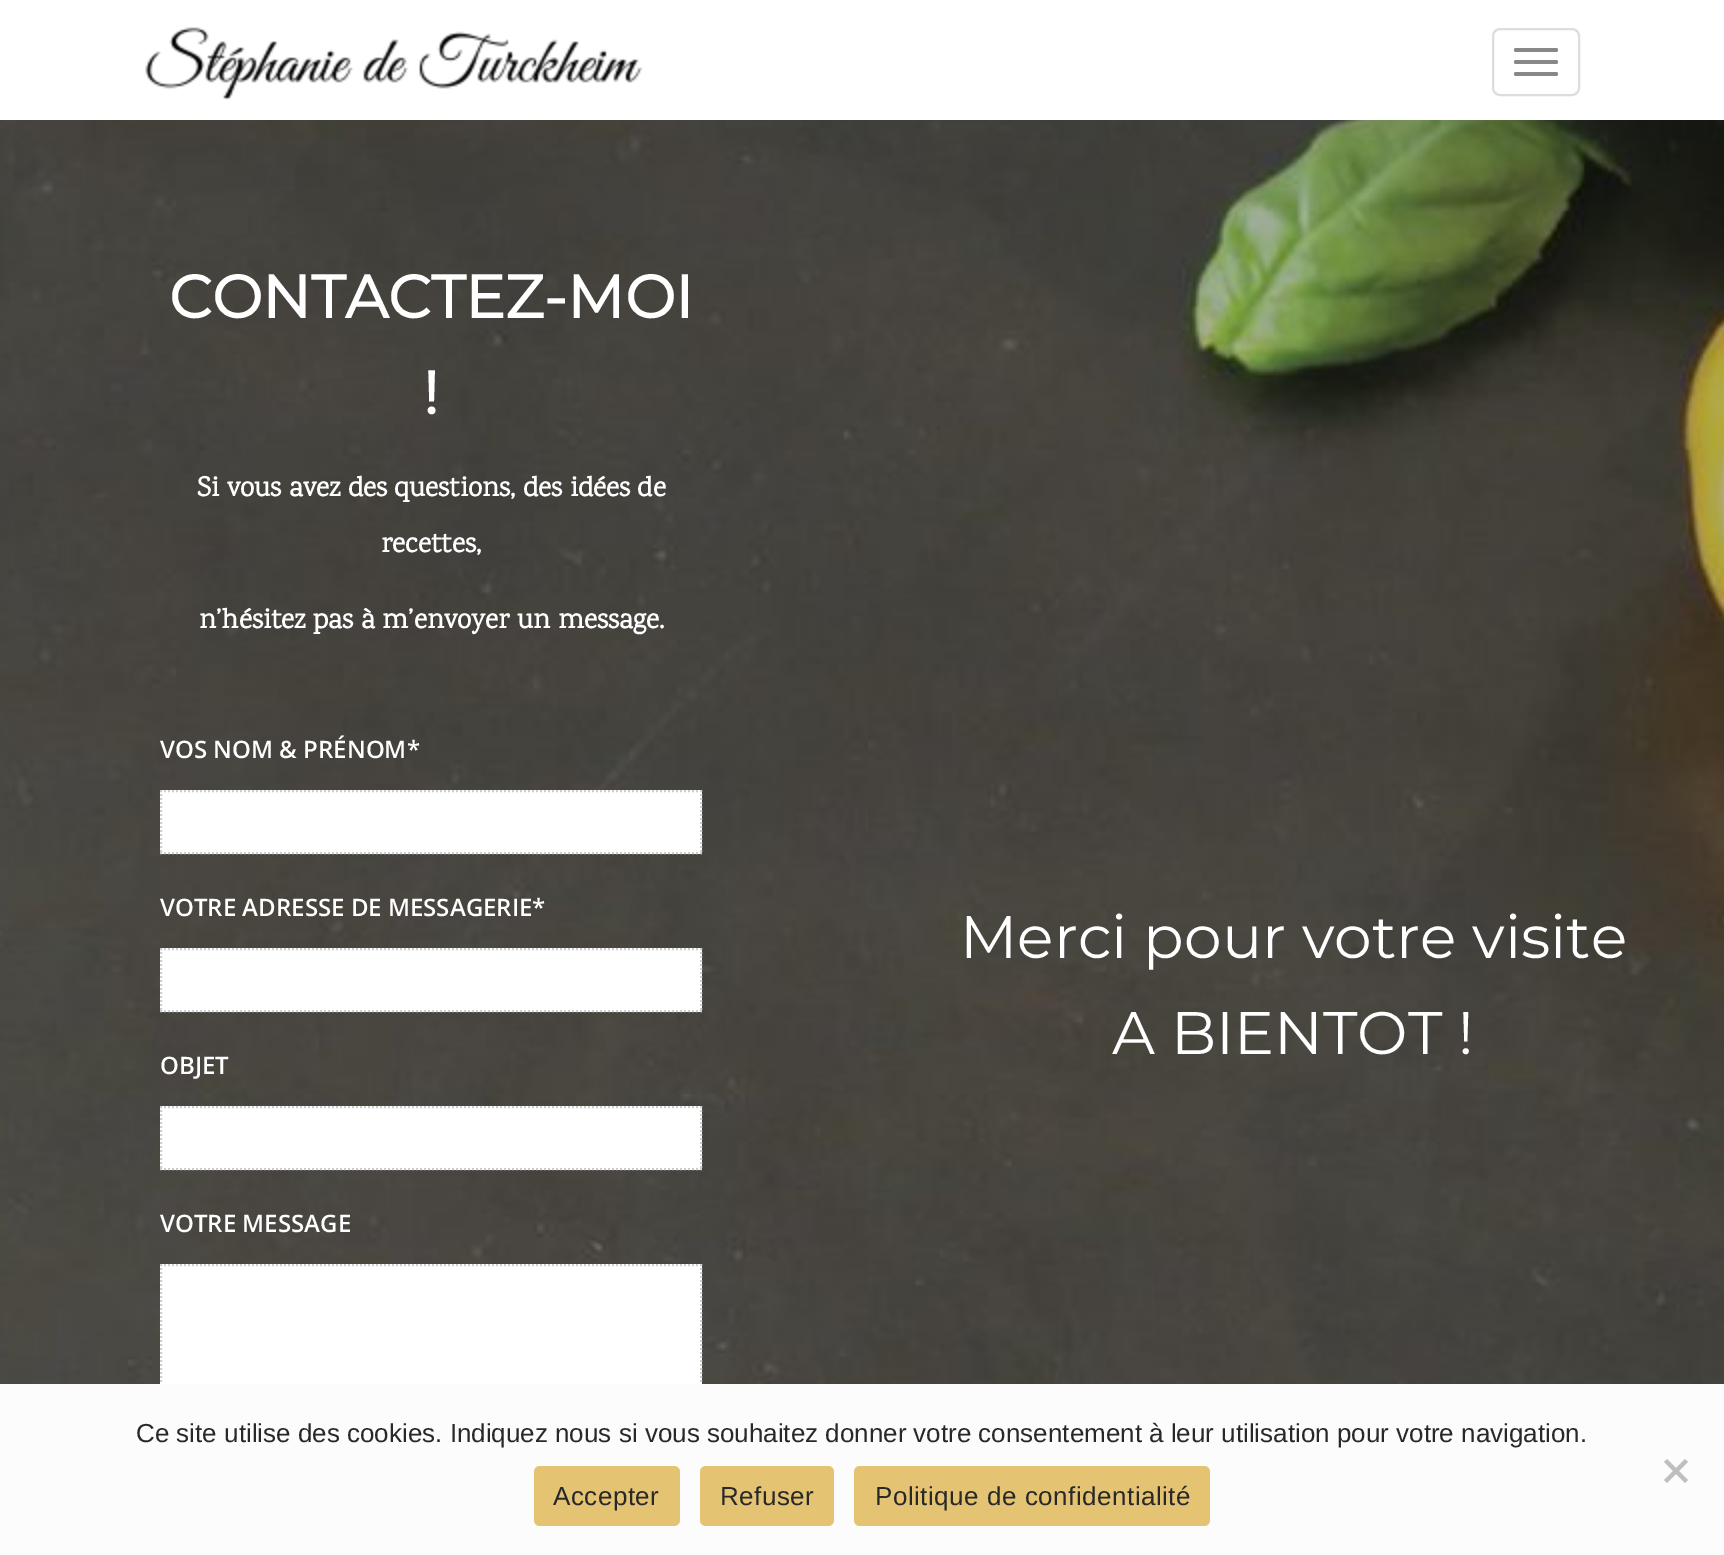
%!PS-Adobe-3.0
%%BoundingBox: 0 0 1724 1555
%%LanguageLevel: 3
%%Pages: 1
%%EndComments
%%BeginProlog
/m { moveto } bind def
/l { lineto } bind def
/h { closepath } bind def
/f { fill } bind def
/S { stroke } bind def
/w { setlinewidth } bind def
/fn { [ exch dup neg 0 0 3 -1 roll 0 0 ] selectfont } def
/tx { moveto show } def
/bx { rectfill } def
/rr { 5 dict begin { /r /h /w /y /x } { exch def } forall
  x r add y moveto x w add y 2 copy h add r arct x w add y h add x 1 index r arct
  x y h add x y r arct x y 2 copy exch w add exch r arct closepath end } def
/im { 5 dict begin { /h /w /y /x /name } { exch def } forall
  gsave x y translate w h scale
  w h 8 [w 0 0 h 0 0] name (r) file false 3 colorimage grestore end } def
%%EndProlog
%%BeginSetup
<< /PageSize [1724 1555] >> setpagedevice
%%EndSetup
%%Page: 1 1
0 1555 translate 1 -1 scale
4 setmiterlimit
1 setgray
0 0 1724 1555 bx
(image0.raw) 145 27 498 73 im
0.867 setgray
2 w
1493 29 86 66 7 rr S
0.533 setgray
1514 48 44 4 2 rr f
1514 60 44 4 2 rr f
1514 72 44 4 2 rr f
(image1.raw) 0 120 1724 1264 im
/Montserrat-Bold 60 fn
1 setgray
(CONTACTEZ-MOI) 169 318 tx
(!) 423 414 tx
/Karma-Bold 28 fn
(Si vous avez des questions, des idées de) 197 496 tx
(recettes,) 381 552 tx
(n’hésitez pas à m’envoyer un message.) 199 628 tx
/OpenSans-SemiBold 24 fn
(VOS NOM & PRÉNOM*) 160 758 tx
160 790 542 64 bx
0.808 setgray
[2 2] 0 setdash
160 791 m 702 791 l S
701 790 m 701 854 l S
160 853 m 702 853 l S
161 790 m 161 854 l S
1 setgray
(VOTRE ADRESSE DE MESSAGERIE*) 160 916 tx
160 948 542 64 bx
0.808 setgray
160 949 m 702 949 l S
701 948 m 701 1012 l S
160 1011 m 702 1011 l S
161 948 m 161 1012 l S
1 setgray
(OBJET) 160 1074 tx
160 1106 542 64 bx
0.808 setgray
160 1107 m 702 1107 l S
701 1106 m 701 1170 l S
160 1169 m 702 1169 l S
161 1106 m 161 1170 l S
1 setgray
(VOTRE MESSAGE) 160 1232 tx
160 1264 542 120 bx
0.808 setgray
160 1265 m 702 1265 l S
701 1264 m 701 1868 l S
161 1264 m 161 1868 l S
/Montserrat-Thin 60 fn
1 setgray
(Merci pour votre visite) 960 958 tx
(A BIENTOT !) 1112 1054 tx
0.988 setgray
0 1384 1724 171 bx
/LiberationSans-Regular 26 fn
0.157 setgray
(Ce site utilise des cookies. Indiquez nous si vous souhaitez donner votre consentement à leur utilisation pour votre navigation.) 136 1442 tx
0.745 setgray
1685 1459 m 1688 1462 l 1667 1483 l 1664 1480 l h f
1664 1462 m 1667 1459 l 1688 1480 l 1685 1483 l h f
0.894 0.765 0.451 setrgbcolor
534 1466 146 60 6 rr f
0.157 setgray
553 1505 m 0.5 0 (Accepter) ashow
0.894 0.765 0.451 setrgbcolor
700 1466 134 60 6 rr f
0.157 setgray
720 1505 m 0.5 0 (Refuser) ashow
0.894 0.765 0.451 setrgbcolor
854 1466 356 60 6 rr f
0.157 setgray
875 1505 m 0.5 0 (Politique de confidentialité) ashow
showpage
%%EOF
